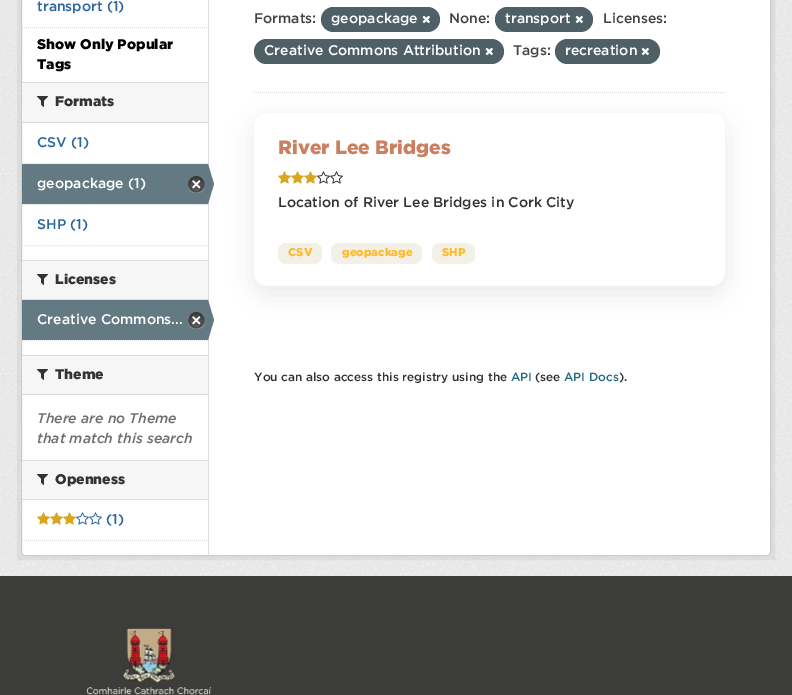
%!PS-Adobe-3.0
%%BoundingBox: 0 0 792 695
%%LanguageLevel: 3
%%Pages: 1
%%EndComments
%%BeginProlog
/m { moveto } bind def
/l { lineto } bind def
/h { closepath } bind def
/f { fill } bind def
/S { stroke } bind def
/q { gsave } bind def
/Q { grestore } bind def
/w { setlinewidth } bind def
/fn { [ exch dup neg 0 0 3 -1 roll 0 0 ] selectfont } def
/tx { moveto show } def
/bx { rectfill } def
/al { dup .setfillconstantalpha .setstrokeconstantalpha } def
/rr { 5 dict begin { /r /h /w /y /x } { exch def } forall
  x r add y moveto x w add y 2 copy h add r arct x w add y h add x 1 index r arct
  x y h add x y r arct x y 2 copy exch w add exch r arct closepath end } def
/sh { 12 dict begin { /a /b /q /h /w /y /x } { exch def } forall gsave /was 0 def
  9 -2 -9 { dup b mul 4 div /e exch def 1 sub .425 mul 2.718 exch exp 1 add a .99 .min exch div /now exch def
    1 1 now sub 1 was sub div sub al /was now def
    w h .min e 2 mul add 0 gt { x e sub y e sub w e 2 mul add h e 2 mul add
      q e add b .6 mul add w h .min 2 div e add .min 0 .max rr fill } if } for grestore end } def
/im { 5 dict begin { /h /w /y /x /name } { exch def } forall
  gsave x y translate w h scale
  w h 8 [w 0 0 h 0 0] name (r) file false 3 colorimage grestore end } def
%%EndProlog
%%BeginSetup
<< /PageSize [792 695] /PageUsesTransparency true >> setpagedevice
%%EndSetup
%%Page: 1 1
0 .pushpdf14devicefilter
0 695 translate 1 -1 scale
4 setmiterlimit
0.235 0.235 0.231 setrgbcolor
0 0 792 695 bx
0.933 setgray
0 0 792 576 bx
(image0.raw) 0 0 792 576 im
0.05 al
0 setgray
4 w
19 -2 754 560 rectstroke
1 al
1 setgray
21.5 -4.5 749 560 3.5 rr q f Q
0.8 setgray
1 w
S
/Gotham-Medium 14 fn
0.169 0.4 0.631 setrgbcolor
(transport \(1\)) 37 11 tx
0.867 setgray
[1 1] 0 setdash
22 27.5 m 208 27.5 l S
/Gotham-Black 14 fn
0 setgray
(Show Only Popular) 37 49 tx
(Tags) 37 69 tx
0.965 setgray
22 83 186 39 bx
0.867 setgray
22 82 186 1 bx
22 122 186 1 bx
(image1.raw) 37 96 11 11 im
0.2 setgray
(Formats) 55 106 tx
0.867 setgray
22 163.5 m 208 163.5 l S
/Gotham-Medium 14 fn
0.169 0.4 0.631 setrgbcolor
(CSV \(1\)) 37 147 tx
0.965 setgray
23 204 185 1 bx
0.867 setgray
22 204.5 m 208 204.5 l S
0.392 0.478 0.51 setrgbcolor
22 164 186 40 bx
1 setgray
(geopackage \(1\)) 37 188 tx
(image2.raw) 188 176 17 17 im
0.867 setgray
208 0 1 555 bx
0.392 0.478 0.51 setrgbcolor
208 204 m 208 164 l 214 184 l h f
0.169 0.4 0.631 setrgbcolor
(SHP \(1\)) 37 229 tx
0.867 setgray
22 245.5 m 208 245.5 l S
0.965 setgray
22 261 186 38 bx
0.867 setgray
22 260 186 1 bx
22 299 186 1 bx
(image1.raw) 37 274 11 11 im
/Gotham-Black 14 fn
0.2 setgray
(Licenses) 55 284 tx
0.392 0.478 0.51 setrgbcolor
22 300 186 40 bx
/Gotham-Medium 14 fn
1 setgray
(Creative Commons...) 37 324 tx
(image3.raw) 188 312 17 17 im
0.392 0.478 0.51 setrgbcolor
208 340 m 208 300 l 214 320 l h f
0.867 setgray
22 340.5 m 208 340.5 l S
0.965 setgray
22 356 186 38 bx
0.867 setgray
22 355 186 1 bx
22 394 186 1 bx
(image1.raw) 37 369 11 11 im
/Gotham-Black 14 fn
0.2 setgray
(Theme) 55 379 tx
/Gotham-MediumItalic 14 fn
0.431 setgray
(There are no Theme) 37 423 tx
(that match this search) 37 443 tx
0.965 setgray
22 461 186 38 bx
0.867 setgray
22 460 186 1 bx
22 499 186 1 bx
(image1.raw) 37 474 11 11 im
/Gotham-Black 14 fn
0.2 setgray
(Openness) 55 484 tx
(image4.raw) 37 512 13 13 im
(image4.raw) 50 512 13 13 im
(image4.raw) 63 512 13 13 im
(image5.raw) 76 512 13 13 im
(image5.raw) 89 512 13 13 im
/Gotham-Medium 14 fn
0.169 0.4 0.631 setrgbcolor
(\(1\)) 106 524 tx
0.867 setgray
22 540.5 m 208 540.5 l S
254 92.5 m 725 92.5 l S
0.267 setgray
(Formats:) 254 23 tx
0.306 0.373 0.396 setrgbcolor
321 7 119 25 12.5 rr f
1 setgray
(geopackage) 331 23 tx
(image6.raw) 422 15 8 9 im
0.267 setgray
(None:) 449 23 tx
0.306 0.373 0.396 setrgbcolor
495 7 98 25 12.5 rr f
1 setgray
(transport) 505 23 tx
(image6.raw) 575 15 8 9 im
0.267 setgray
(Licenses:) 603 23 tx
0.306 0.373 0.396 setrgbcolor
254 39 250 25 12.5 rr f
1 setgray
(Creative Commons Attribution) 264 55 tx
(image6.raw) 485 47 8 9 im
0.267 setgray
(Tags:) 513 55 tx
0.306 0.373 0.396 setrgbcolor
555 39 105 25 12.5 rr f
1 setgray
(recreation) 565 55 tx
(image6.raw) 641 47 8 9 im
0.584 0.616 0.647 setrgbcolor
254 121 471 173 14 12 0.2 sh
1 setgray
254 113 471 173 14 rr f
/Gotham-Black 19.25 fn
0.8 0.498 0.376 setrgbcolor
(River Lee Bridges) 278 154 tx
(image4.raw) 278 171 13 13 im
(image4.raw) 291 171 13 13 im
(image4.raw) 304 171 13 13 im
(image7.raw) 317 171 13 13 im
(image7.raw) 330 171 13 13 im
/Gotham-Medium 14 fn
0.2 setgray
(Location of River Lee Bridges in Cork City) 278 207 tx
0.953 0.941 0.91 setrgbcolor
278 243 44 21 8 rr f
/Gotham-Black 11.25 fn
0.992 0.737 0.18 setrgbcolor
(CSV) 288 256 tx
0.953 0.941 0.91 setrgbcolor
331 243 91 21 8 rr f
0.992 0.737 0.18 setrgbcolor
(geopackage) 342 256 tx
0.953 0.941 0.91 setrgbcolor
432 243 43 21 8 rr f
0.992 0.737 0.18 setrgbcolor
(SHP) 442 256 tx
/Gotham-Medium 11.9 fn
0.2 setgray
(You can also access this registry using the) 254 381 tx
0.125 0.42 0.51 setrgbcolor
(API) 511 381 tx
0.2 setgray
(\(see) 535 381 tx
0.125 0.42 0.51 setrgbcolor
(API Docs) 564 381 tx
0.2 setgray
(\).) 619 381 tx
(image8.raw) 87 628 124 67 im
.poppdf14devicefilter showpage
%%EOF
